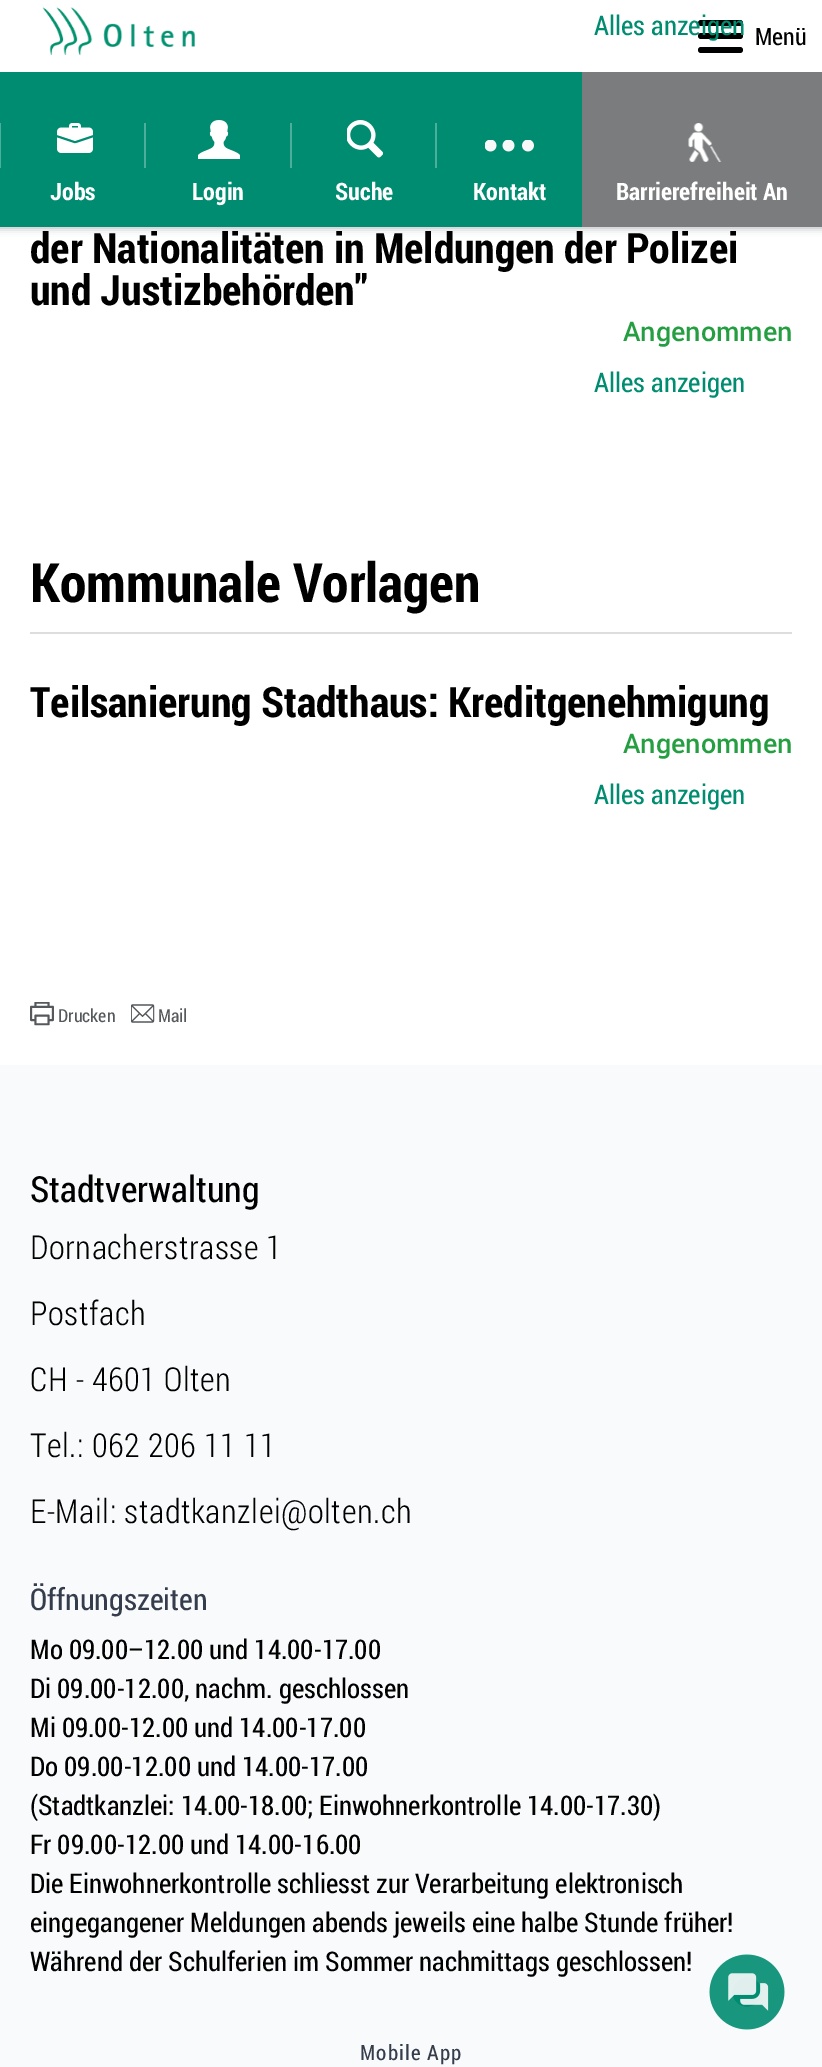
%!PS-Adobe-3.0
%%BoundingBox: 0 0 822 2067
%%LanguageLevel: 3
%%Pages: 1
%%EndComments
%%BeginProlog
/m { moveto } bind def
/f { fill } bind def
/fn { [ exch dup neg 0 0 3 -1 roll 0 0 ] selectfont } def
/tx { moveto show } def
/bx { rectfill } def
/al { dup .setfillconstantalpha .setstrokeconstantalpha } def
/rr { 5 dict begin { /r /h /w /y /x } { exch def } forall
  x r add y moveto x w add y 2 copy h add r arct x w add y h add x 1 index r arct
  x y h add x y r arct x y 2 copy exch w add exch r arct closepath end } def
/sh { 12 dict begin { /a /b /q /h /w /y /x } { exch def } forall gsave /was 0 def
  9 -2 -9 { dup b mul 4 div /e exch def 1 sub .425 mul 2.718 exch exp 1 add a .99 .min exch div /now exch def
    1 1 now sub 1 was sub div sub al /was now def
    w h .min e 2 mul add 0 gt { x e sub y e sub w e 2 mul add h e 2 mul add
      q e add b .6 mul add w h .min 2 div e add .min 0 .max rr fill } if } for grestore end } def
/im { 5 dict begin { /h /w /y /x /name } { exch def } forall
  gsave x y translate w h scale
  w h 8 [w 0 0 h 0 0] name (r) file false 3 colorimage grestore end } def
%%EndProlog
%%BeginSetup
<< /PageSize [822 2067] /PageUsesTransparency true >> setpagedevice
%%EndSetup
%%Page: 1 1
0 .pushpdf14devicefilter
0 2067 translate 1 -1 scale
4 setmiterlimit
1 setgray
0 0 822 2067 bx
0.682 0.694 0.714 setrgbcolor
-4 -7 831 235 0 4 1 sh
1 setgray
0 0 822 72 bx
0 setgray
698 20 45 6 3 rr f
698 33 45 6 3 rr f
/RobotoCondensed-Regular 27 fn
0 0.549 0.439 setrgbcolor
(Alles anzeigen) 594 35 tx
/RobotoCondensed-Bold 42 fn
0 setgray
(der Nationalitäten in Meldungen der Polizei) 30 263 tx
(und Justizbehörden") 30 305 tx
/Roboto-Medium 27 fn
0.145 0.616 0.255 setrgbcolor
(Angenommen) 623 341 tx
/RobotoCondensed-Regular 27 fn
0 0.549 0.439 setrgbcolor
(Alles anzeigen) 594 392 tx
/RobotoCondensed-Bold 54 fn
0 setgray
(Kommunale Vorlagen) 30 602 tx
0.867 setgray
30 632 762 2 bx
/RobotoCondensed-Bold 42 fn
0 setgray
(Teilsanierung Stadthaus: Kreditgenehmigung) 30 717 tx
/Roboto-Medium 27 fn
0.145 0.616 0.255 setrgbcolor
(Angenommen) 623 753 tx
/RobotoCondensed-Regular 27 fn
0 0.549 0.439 setrgbcolor
(Alles anzeigen) 594 804 tx
(image0.raw) 30 1002 24 24 im
/RobotoCondensed-Regular 18 fn
0.333 0.349 0.361 setrgbcolor
(Drucken) 58 1022 tx
(image1.raw) 131 1004 24 19 im
(Mail) 158 1022 tx
(image2.raw) 42 7 153 49 im
0 setgray
698 47 45 6 3 rr f
/RobotoCondensed-Regular 24 fn
(Menü) 755 45 tx
0 0.549 0.439 setrgbcolor
0 72 582 155 bx
0.302 0.686 0.608 setrgbcolor
0 123 1 45 bx
(image3.raw) 57 123 36 30 im
/RobotoCondensed-Bold 24 fn
1 setgray
(Jobs) 50 200 tx
0.302 0.686 0.608 setrgbcolor
144 123 2 45 bx
(image4.raw) 198 120 42 39 im
1 setgray
(Login) 192 200 tx
0.302 0.686 0.608 setrgbcolor
290 123 2 45 bx
(image5.raw) 347 120 36 38 im
1 setgray
(Suche) 335 200 tx
0.302 0.686 0.608 setrgbcolor
435 123 2 45 bx
(image6.raw) 485 140 49 12 im
1 setgray
(Kontakt) 473 200 tx
0.482 0.486 0.494 setrgbcolor
582 72 240 155 bx
(image7.raw) 688 123 34 39 im
1 setgray
(Barrierefreiheit An) 616 200 tx
0.976 0.98 0.984 setrgbcolor
0 1065 822 1002 bx
/RobotoCondensed-Regular 36 fn
0 setgray
(Stadtverwaltung) 30 1202 tx
/RobotoCondensed-Light 33 fn
30 1259 m 0.6 0 (Dornacherstrasse 1) ashow
30 1325 m 0.6 0 (Postfach) ashow
30 1391 m 0.6 0 (CH - 4601 Olten) ashow
30 1457 m 0.6 0 (Tel.: 062 206 11 11) ashow
30 1523 m 0.6 0 (E-Mail: stadtkanzlei@olten.ch) ashow
/RobotoCondensed-Regular 30 fn
0.208 0.239 0.298 setrgbcolor
(Öffnungszeiten) 30 1610 tx
/RobotoCondensed-Regular 27 fn
0 setgray
(Mo 09.00–12.00 und 14.00-17.00) 30 1659 tx
(Di 09.00-12.00, nachm. geschlossen) 30 1698 tx
(Mi 09.00-12.00 und 14.00-17.00) 30 1737 tx
(Do 09.00-12.00 und 14.00-17.00) 30 1776 tx
(\(Stadtkanzlei: 14.00-18.00; Einwohnerkontrolle 14.00-17.30\)) 30 1815 tx
(Fr 09.00-12.00 und 14.00-16.00) 30 1854 tx
(Die Einwohnerkontrolle schliesst zur Verarbeitung elektronisch) 30 1893 tx
(eingegangener Meldungen abends jeweils eine halbe Stunde früher!) 30 1932 tx
(Während der Schulferien im Sommer nachmittags geschlossen!) 30 1971 tx
/RobotoCondensed-Regular 21 fn
0.208 0.239 0.298 setrgbcolor
360 2060 m 1.1 0 (Mobile App) ashow
(image8.raw) 709 1954 76 76 im
.poppdf14devicefilter showpage
%%EOF
